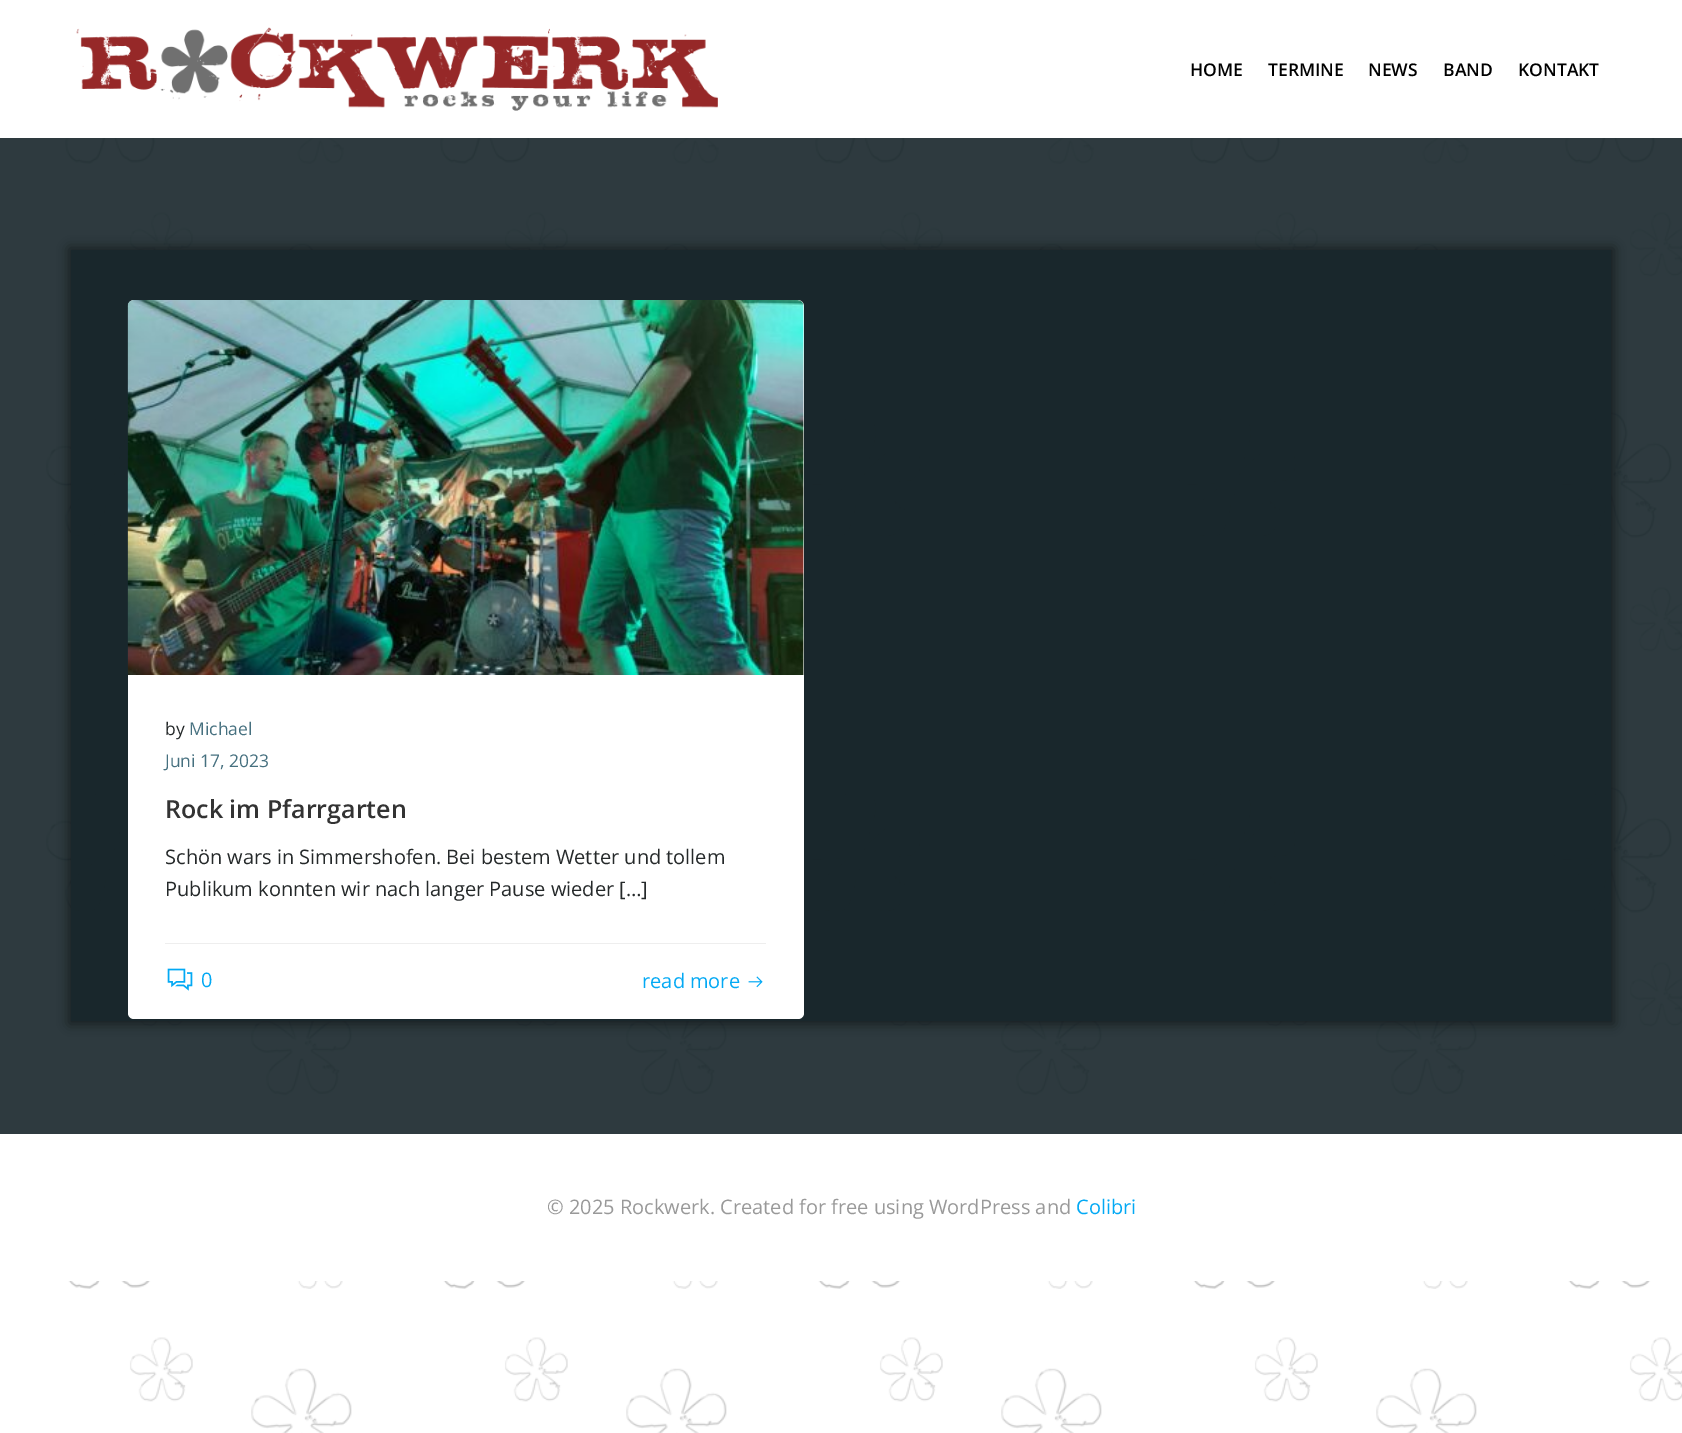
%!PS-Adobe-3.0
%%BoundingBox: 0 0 1682 1433
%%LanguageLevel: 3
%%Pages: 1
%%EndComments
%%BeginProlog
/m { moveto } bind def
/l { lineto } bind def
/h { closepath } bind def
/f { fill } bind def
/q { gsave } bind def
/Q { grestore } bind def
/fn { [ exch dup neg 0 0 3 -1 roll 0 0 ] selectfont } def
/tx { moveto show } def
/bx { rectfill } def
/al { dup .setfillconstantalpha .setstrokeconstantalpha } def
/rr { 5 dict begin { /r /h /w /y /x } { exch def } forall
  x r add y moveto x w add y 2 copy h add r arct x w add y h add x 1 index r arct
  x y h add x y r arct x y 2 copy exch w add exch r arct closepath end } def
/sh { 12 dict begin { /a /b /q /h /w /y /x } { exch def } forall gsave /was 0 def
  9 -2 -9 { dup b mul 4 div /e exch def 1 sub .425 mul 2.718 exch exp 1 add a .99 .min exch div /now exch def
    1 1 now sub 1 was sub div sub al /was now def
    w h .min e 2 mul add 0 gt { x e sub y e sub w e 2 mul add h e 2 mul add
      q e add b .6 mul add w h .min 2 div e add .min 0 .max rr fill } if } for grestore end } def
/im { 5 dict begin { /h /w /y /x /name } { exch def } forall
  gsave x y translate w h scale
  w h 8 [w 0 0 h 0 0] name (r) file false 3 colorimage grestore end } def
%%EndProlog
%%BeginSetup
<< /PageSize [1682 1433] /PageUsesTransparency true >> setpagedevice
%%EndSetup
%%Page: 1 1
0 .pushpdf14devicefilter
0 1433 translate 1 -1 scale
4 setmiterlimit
1 setgray
0 0 1682 1433 bx
(image0.raw) 46 138 1636 1295 im
(image1.raw) 76 27 642 84 im
/OpenSans-SemiBold 17.5 fn
0 setgray
(HOME) 1190 76 tx
(TERMINE) 1268 76 tx
(NEWS) 1368 76 tx
(BAND) 1443 76 tx
(KONTAKT) 1518 76 tx
0.9 al
0.09 0.145 0.165 setrgbcolor
0 138 1682 996 bx
q
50 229 m 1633 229 l 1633 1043 l 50 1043 l h 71 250 m 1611 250 l 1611 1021 l 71 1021 l h eoclip newpath
1 al
0 setgray
69 248 1545 776 0 6 0.5 sh
Q
71 250 1540 771 bx
1 al
1 setgray
128 300 676 719 6 rr f
(image2.raw) 127 300 677 375 im
0.933 setgray
165 943 601 1 bx
/OpenSans-Regular 17.5 fn
0.145 0.161 0.165 setrgbcolor
(by) 165 735 tx
0.275 0.439 0.498 setrgbcolor
(Michael) 189 735 tx
(Juni 17, 2023) 165 767 tx
/OpenSans-SemiBold 25 fn
0.2 setgray
(Rock im Pfarrgarten) 165 818 tx
/OpenSans-Regular 20 fn
0.145 0.161 0.165 setrgbcolor
(Schön wars in Simmershofen. Bei bestem Wetter und tollem) 165 864 tx
(Publikum konnten wir nach langer Pause wieder […]) 165 896 tx
(image3.raw) 167 968 26 23 im
0.012 0.663 0.957 setrgbcolor
(0) 201 987 tx
(read more) 642 988 tx
(image4.raw) 748 976 15 12 im
1 setgray
46 1162 1626 119 bx
0.6 setgray
(© 2025 Rockwerk. Created for free using WordPress and) 547 1214 tx
0.012 0.663 0.957 setrgbcolor
(Colibri) 1076 1214 tx
.poppdf14devicefilter showpage
%%EOF
